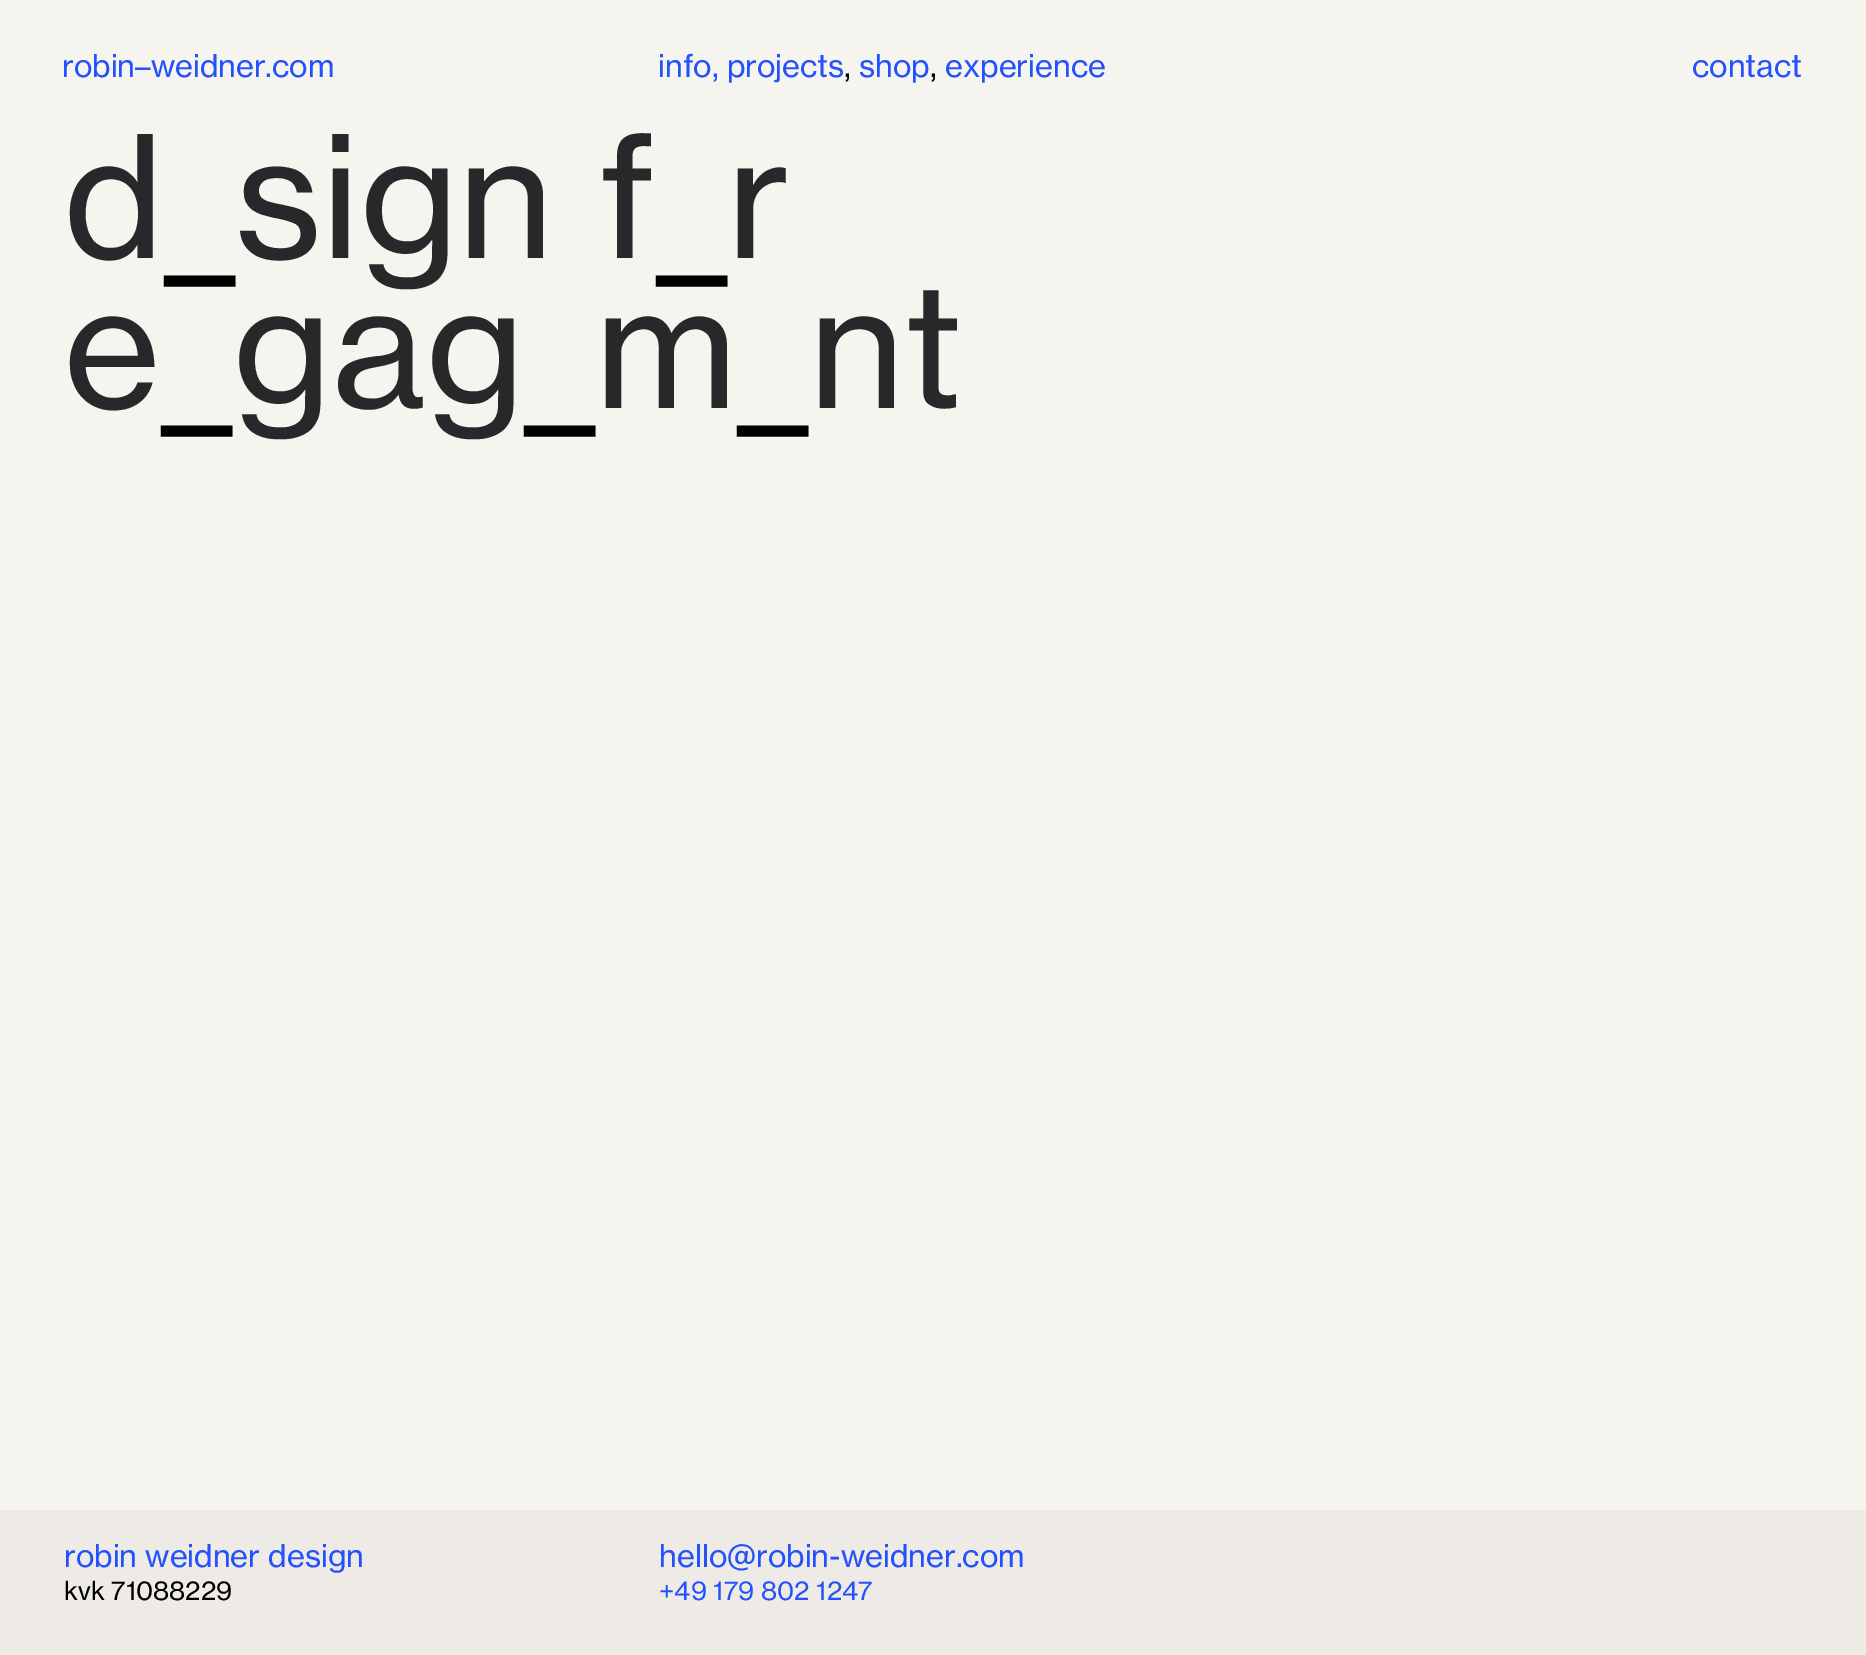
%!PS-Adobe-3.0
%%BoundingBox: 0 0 1866 1655
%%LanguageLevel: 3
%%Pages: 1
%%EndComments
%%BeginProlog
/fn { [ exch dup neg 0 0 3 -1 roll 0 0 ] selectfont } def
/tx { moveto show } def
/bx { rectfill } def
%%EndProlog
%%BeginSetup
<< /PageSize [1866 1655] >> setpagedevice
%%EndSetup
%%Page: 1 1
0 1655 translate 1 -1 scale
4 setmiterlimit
0.965 0.957 0.933 setrgbcolor
0 0 1866 1655 bx
/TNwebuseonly-Regular 31 fn
0.137 0.318 0.988 setrgbcolor
(robin–weidner.com) 62 77 tx
(info, projects) 658 77 tx
0 setgray
(,) 844 77 tx
0.137 0.318 0.988 setrgbcolor
(shop) 859 77 tx
0 setgray
(,) 930 77 tx
0.137 0.318 0.988 setrgbcolor
(experience) 945 77 tx
(contact) 1692 77 tx
/TNwebuseonly-Regular 167 fn
0.157 0.157 0.165 setrgbcolor
(d) 64 258 tx
(sign f) 235 258 tx
(r) 727 258 tx
0 setgray
(_) 164 258 tx
(_) 656 258 tx
0.157 0.157 0.165 setrgbcolor
(e) 64 408 tx
(gag) 232 408 tx
(m) 595 408 tx
(nt) 809 408 tx
0 setgray
(_) 161 408 tx
(_) 524 408 tx
(_) 737 408 tx
0.933 0.922 0.902 setrgbcolor
0 1510 1866 145 bx
/TNwebuseonly-Regular 31 fn
0.137 0.318 0.988 setrgbcolor
(robin weidner design) 64 1567 tx
/TNwebuseonly-Regular 25.75 fn
0 setgray
(kvk 71088229) 64 1600 tx
/TNwebuseonly-Regular 31 fn
0.137 0.318 0.988 setrgbcolor
(hello@robin-weidner.com) 659 1567 tx
/TNwebuseonly-Regular 25.75 fn
(+49 179 802 1247) 659 1600 tx
showpage
%%EOF
